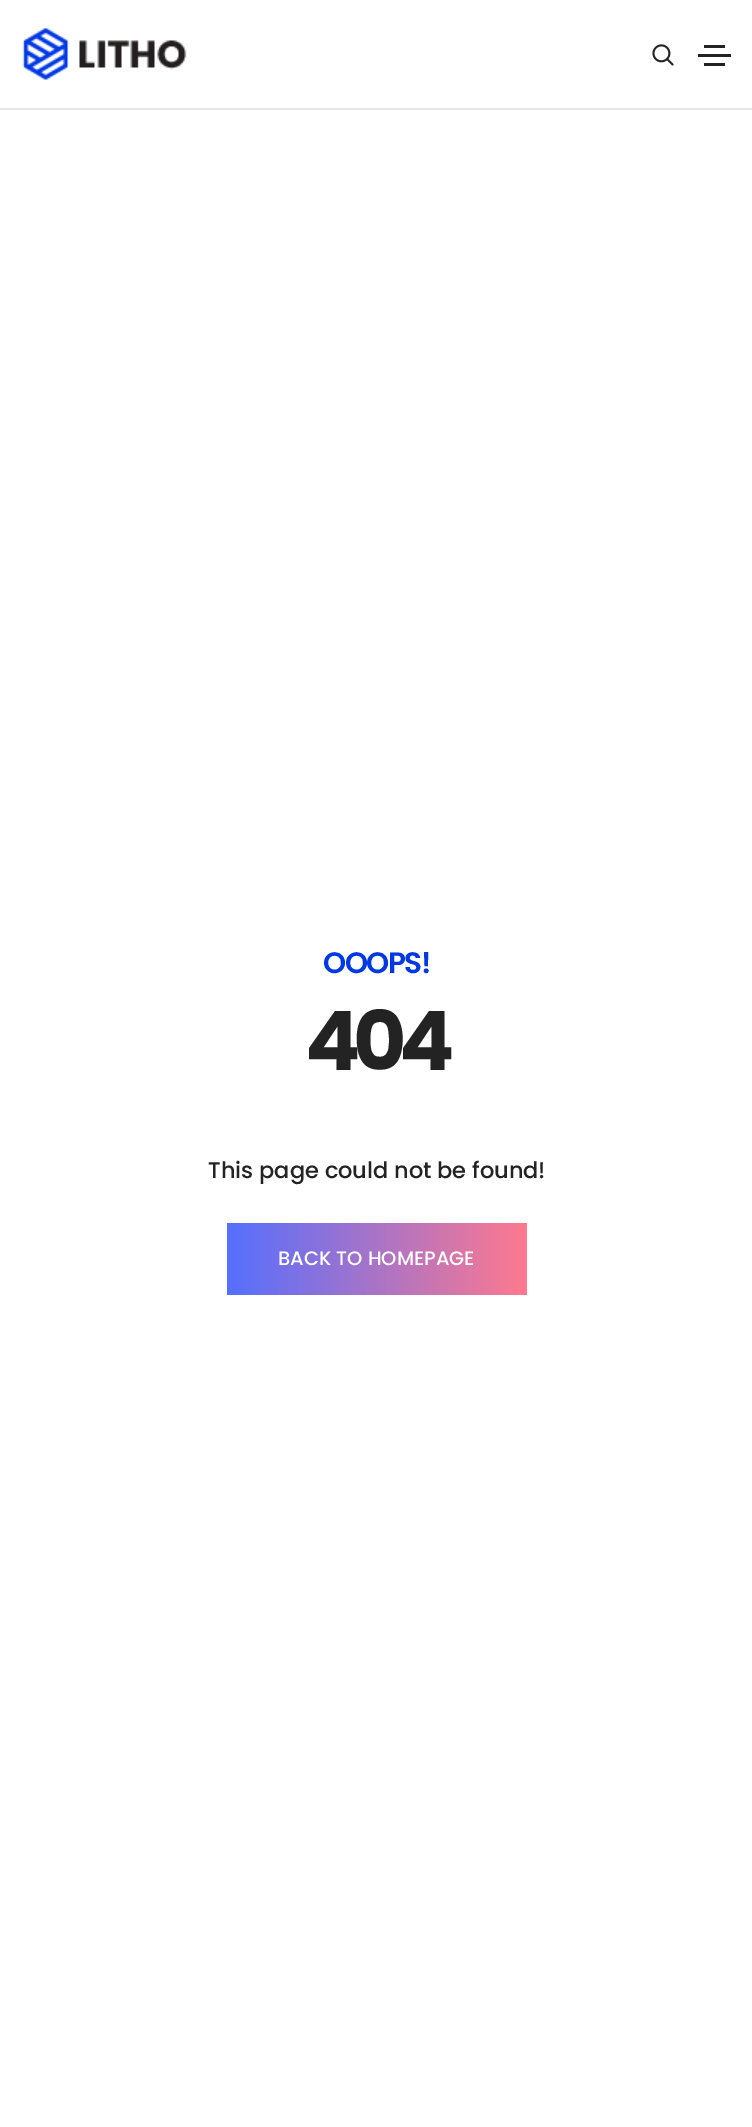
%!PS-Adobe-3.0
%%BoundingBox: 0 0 752 2127
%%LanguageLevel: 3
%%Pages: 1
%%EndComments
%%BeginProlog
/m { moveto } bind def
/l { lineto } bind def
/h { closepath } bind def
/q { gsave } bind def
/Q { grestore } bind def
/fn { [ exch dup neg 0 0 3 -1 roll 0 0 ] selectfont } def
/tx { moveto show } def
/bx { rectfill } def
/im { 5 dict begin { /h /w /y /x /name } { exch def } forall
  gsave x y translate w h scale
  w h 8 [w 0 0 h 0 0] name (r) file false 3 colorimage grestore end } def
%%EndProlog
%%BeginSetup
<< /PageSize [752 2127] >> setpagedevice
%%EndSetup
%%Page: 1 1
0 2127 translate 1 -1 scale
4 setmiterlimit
1 setgray
0 0 752 2127 bx
0.902 setgray
0 108 752 2 bx
(image0.raw) 22 27 165 53 im
(image1.raw) 652 44 22 22 im
0.137 setgray
704 45 21 3 bx
698 54 33 3 bx
704 63 21 3 bx
/Poppins-SemiBold 29.5 fn
0 0.22 0.89 setrgbcolor
323 973 m -1.5 0 (OOOPS!) ashow
/Poppins-Bold 82 fn
0.137 setgray
305 1070 m -7.5 0 (404) ashow
/Poppins-Medium 22.5 fn
(This page could not be found!) 208 1178 tx
q 227 1223 m 527 1223 l 527 1295 l 227 1295 l h clip newpath
<< /ShadingType 2 /ColorSpace /DeviceRGB /Coords [227 1259 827 1259] /Extend [true true] /Function << /FunctionType 3 /Domain [0 1] /Functions [<< /FunctionType 2 /Domain [0 1] /C0 [0.333 0.435 1] /C1 [1 0.475 0.557] /N 1 >> << /FunctionType 2 /Domain [0 1] /C0 [1 0.475 0.557] /C1 [0.333 0.435 1] /N 1 >>] /Bounds [0.5] /Encode [0 1 0 1] >> >> shfill Q
/Poppins-Medium 19.5 fn
1 setgray
(BACK TO HOMEPAGE) 278 1265 tx
showpage
%%EOF
